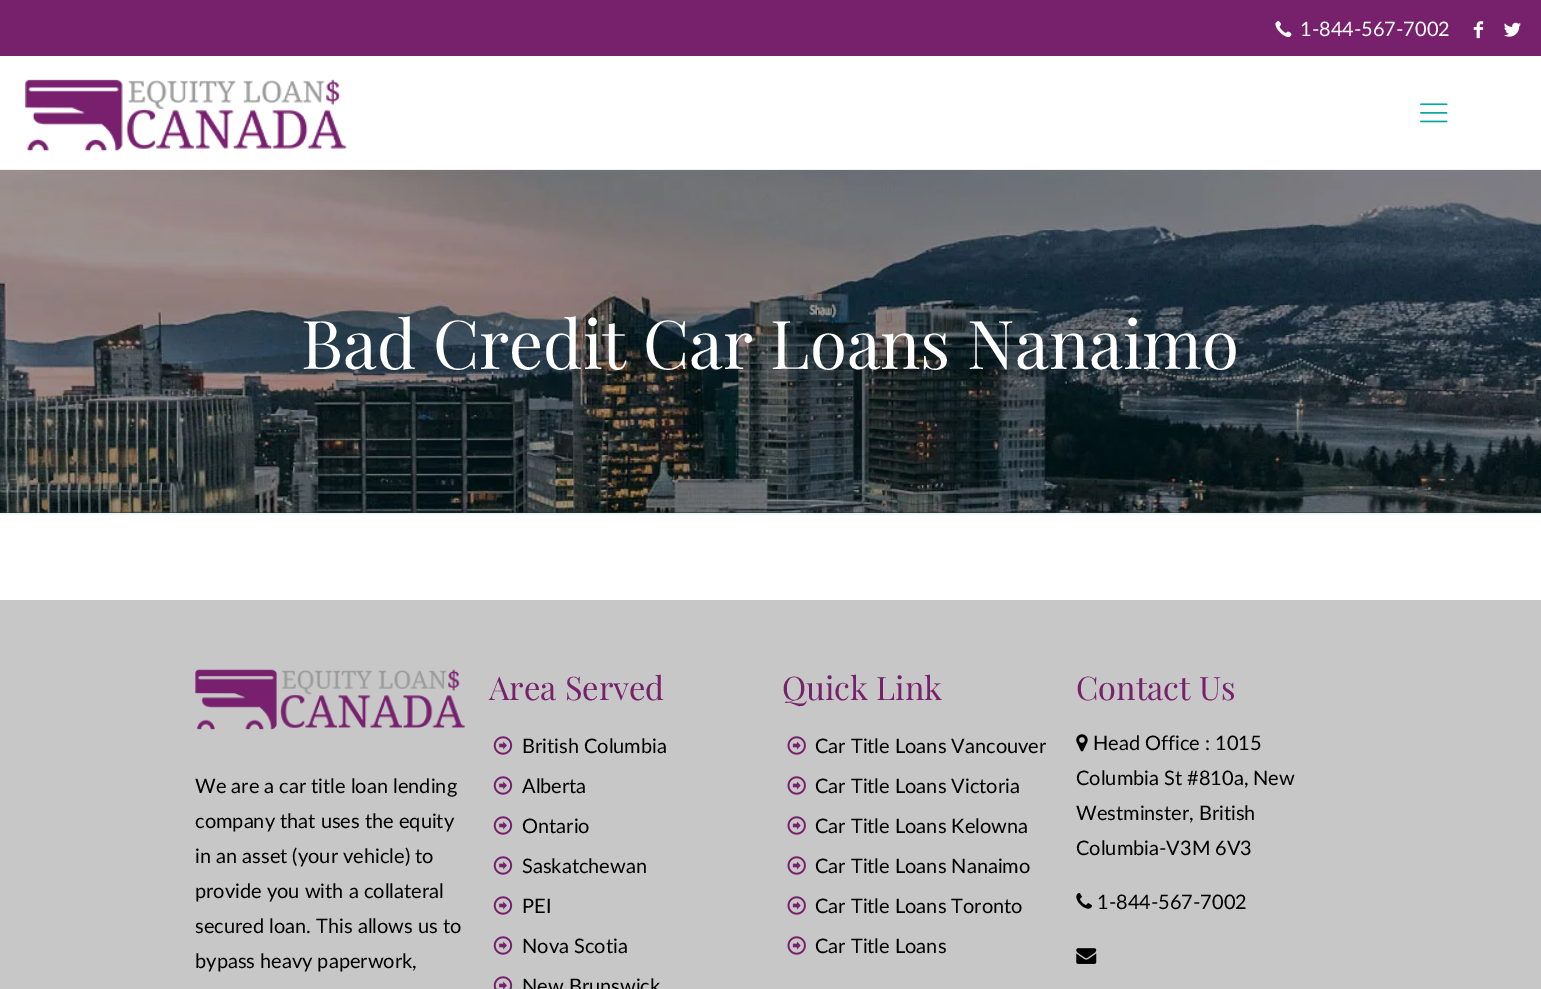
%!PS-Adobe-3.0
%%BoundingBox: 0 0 1541 989
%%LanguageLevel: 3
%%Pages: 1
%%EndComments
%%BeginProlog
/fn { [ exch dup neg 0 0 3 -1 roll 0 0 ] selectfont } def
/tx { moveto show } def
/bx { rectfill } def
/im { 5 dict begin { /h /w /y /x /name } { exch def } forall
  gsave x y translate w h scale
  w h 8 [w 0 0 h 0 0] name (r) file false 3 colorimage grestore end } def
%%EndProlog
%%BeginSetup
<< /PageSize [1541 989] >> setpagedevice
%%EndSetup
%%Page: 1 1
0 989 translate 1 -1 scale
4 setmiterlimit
1 setgray
0 0 1541 989 bx
0.075 0.227 0.227 setrgbcolor
0 512 1541 1 bx
(image0.raw) 0 170 1541 343 im
0.467 0.129 0.427 setrgbcolor
0 0 1541 56 bx
(image1.raw) 1275 21 17 17 im
/Lato-Regular 20 fn
1 setgray
(1-844-567-7002) 1300 36 tx
(image2.raw) 1473 21 11 18 im
(image3.raw) 1503 22 18 15 im
0.949 setgray
0 169 1541 1 bx
(image4.raw) 25 79 322 73 im
(image5.raw) 1420 103 28 20 im
/PlayfairDisplay-Regular 67.5 fn
1 setgray
(Bad Credit Car Loans Nanaimo) 301 369 tx
(image6.raw) 0 513 1541 2 im
0.78 setgray
0 600 1541 389 bx
(image7.raw) 195 669 270 61 im
/Lato-Regular 20 fn
0 setgray
(We are a car title loan lending) 195 793 tx
(company that uses the equity) 195 828 tx
(in an asset \(your vehicle\) to) 195 863 tx
(provide you with a collateral) 195 898 tx
(secured loan. This allows us to) 195 933 tx
(bypass heavy paperwork,) 195 968 tx
/PlayfairDisplay-Regular 32.5 fn
0.467 0.129 0.427 setrgbcolor
(Area Served) 489 700 tx
(image8.raw) 493 736 20 19 im
/Lato-Regular 20 fn
0 setgray
(British Columbia) 522 753 tx
(image8.raw) 493 776 20 19 im
(Alberta) 522 793 tx
(image8.raw) 493 816 20 19 im
(Ontario) 522 833 tx
(image8.raw) 493 856 20 19 im
(Saskatchewan) 522 873 tx
(image8.raw) 493 896 20 19 im
(PEI) 522 913 tx
(image8.raw) 493 936 20 19 im
(Nova Scotia) 522 953 tx
(image9.raw) 493 976 20 13 im
(New Brunswick) 522 993 tx
/PlayfairDisplay-Regular 32.5 fn
0.467 0.129 0.427 setrgbcolor
(Quick Link) 782 700 tx
(image10.raw) 787 736 19 19 im
/Lato-Regular 20 fn
0 setgray
(Car Title Loans Vancouver) 815 753 tx
(image10.raw) 787 776 19 19 im
(Car Title Loans Victoria) 815 793 tx
(image10.raw) 787 816 19 19 im
(Car Title Loans Kelowna) 815 833 tx
(image10.raw) 787 856 19 19 im
(Car Title Loans Nanaimo) 815 873 tx
(image10.raw) 787 896 19 19 im
(Car Title Loans Toronto) 815 913 tx
(image10.raw) 787 936 19 19 im
(Car Title Loans) 815 953 tx
/PlayfairDisplay-Regular 32.5 fn
0.467 0.129 0.427 setrgbcolor
(Contact Us) 1076 700 tx
(image11.raw) 1076 734 12 18 im
/Lato-Regular 20 fn
0 setgray
(Head Office : 1015) 1093 750 tx
(Columbia St #810a, New) 1076 785 tx
(Westminster, British) 1076 820 tx
(Columbia-V3M 6V3) 1076 855 tx
(image12.raw) 1076 893 16 16 im
(1-844-567-7002) 1097 909 tx
(image13.raw) 1076 948 21 16 im
showpage
%%EOF
